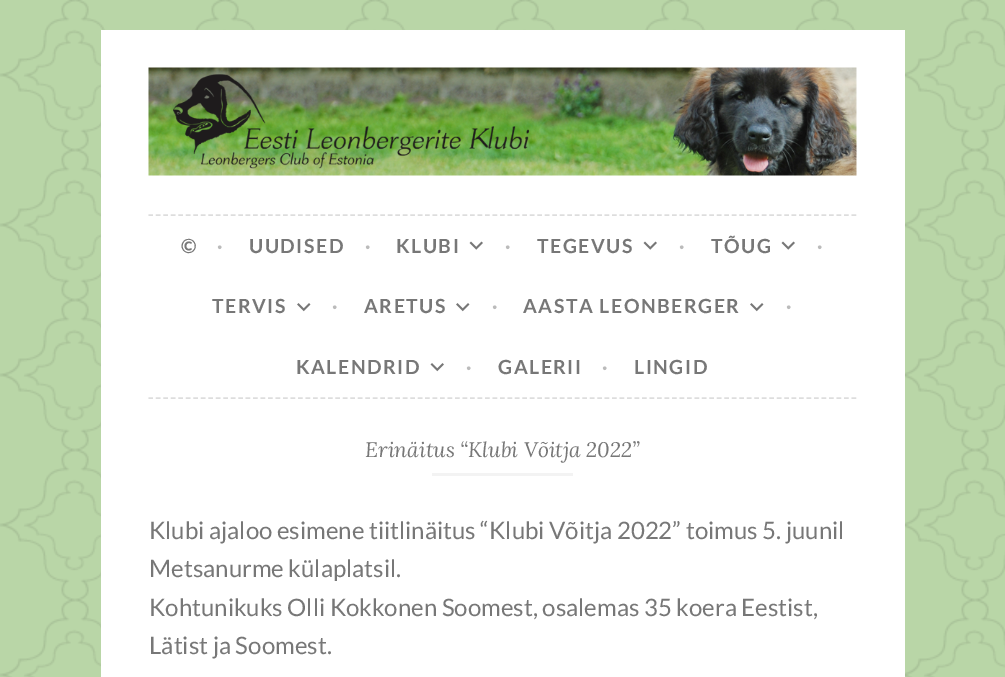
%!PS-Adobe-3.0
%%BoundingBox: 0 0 1005 677
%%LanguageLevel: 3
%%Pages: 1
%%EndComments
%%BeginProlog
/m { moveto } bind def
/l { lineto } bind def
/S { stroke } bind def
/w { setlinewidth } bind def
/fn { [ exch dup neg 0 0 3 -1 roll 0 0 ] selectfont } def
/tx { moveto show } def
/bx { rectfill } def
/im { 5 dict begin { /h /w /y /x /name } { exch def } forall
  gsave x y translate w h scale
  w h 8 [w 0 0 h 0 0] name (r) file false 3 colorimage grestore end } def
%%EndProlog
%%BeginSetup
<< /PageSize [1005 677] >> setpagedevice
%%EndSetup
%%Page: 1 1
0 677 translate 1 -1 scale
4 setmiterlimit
0.725 0.839 0.655 setrgbcolor
0 0 1005 677 bx
(image0.raw) 0 0 1005 677 im
1 setgray
101 30 804 647 bx
(image1.raw) 148 67 709 109 im
0.867 setgray
1.5 w
[4.5 2.98] 0 setdash
148.5 215 m 856.5 215 l S
148.5 398 m 856.5 398 l S
/Lato-Bold 19.5 fn
0.467 setgray
181 253 m 1.5 0 (©) ashow
0.733 setgray
217 253 m 1.5 0 (·) ashow
0.467 setgray
249 253 m 1.5 0 (UUDISED) ashow
0.733 setgray
365 253 m 1.5 0 (·) ashow
0.467 setgray
396 253 m 1.5 0 (KLUBI) ashow
(image2.raw) 469 241 14 9 im
0.733 setgray
505 253 m 1.5 0 (·) ashow
0.467 setgray
537 253 m 1.5 0 (TEGEVUS) ashow
(image2.raw) 643 241 14 9 im
0.733 setgray
679 253 m 1.5 0 (·) ashow
0.467 setgray
711 253 m 1.5 0 (TÕUG) ashow
(image2.raw) 781 241 14 9 im
0.733 setgray
817 253 m 1.5 0 (·) ashow
0.467 setgray
212 313 m 1.5 0 (TERVIS) ashow
(image3.raw) 297 303 14 9 im
0.733 setgray
332 313 m 1.5 0 (·) ashow
0.467 setgray
364 313 m 1.5 0 (ARETUS) ashow
(image3.raw) 456 303 14 9 im
0.733 setgray
492 313 m 1.5 0 (·) ashow
0.467 setgray
523 313 m 1.5 0 (AASTA LEONBERGER) ashow
(image3.raw) 750 303 14 9 im
0.733 setgray
786 313 m 1.5 0 (·) ashow
0.467 setgray
296 374 m 1.5 0 (KALENDRID) ashow
(image4.raw) 430 363 14 9 im
0.733 setgray
466 374 m 1.5 0 (·) ashow
0.467 setgray
498 374 m 1.5 0 (GALERII) ashow
0.733 setgray
602 374 m 1.5 0 (·) ashow
0.467 setgray
634 374 m 1.5 0 (LINGID) ashow
/Lora-Italic 21 fn
(Erinäitus “Klubi Võitja 2022”) 365 457 tx
0.953 setgray
432 473 141 3 bx
/Lato-Regular 24 fn
0.467 setgray
(Klubi ajaloo esimene tiitlinäitus “Klubi Võitja 2022” toimus 5. juunil) 149 539 tx
(Metsanurme külaplatsil.) 149 577 tx
(Kohtunikuks Olli Kokkonen Soomest, osalemas 35 koera Eestist,) 149 616 tx
(Lätist ja Soomest.) 149 654 tx
showpage
%%EOF
